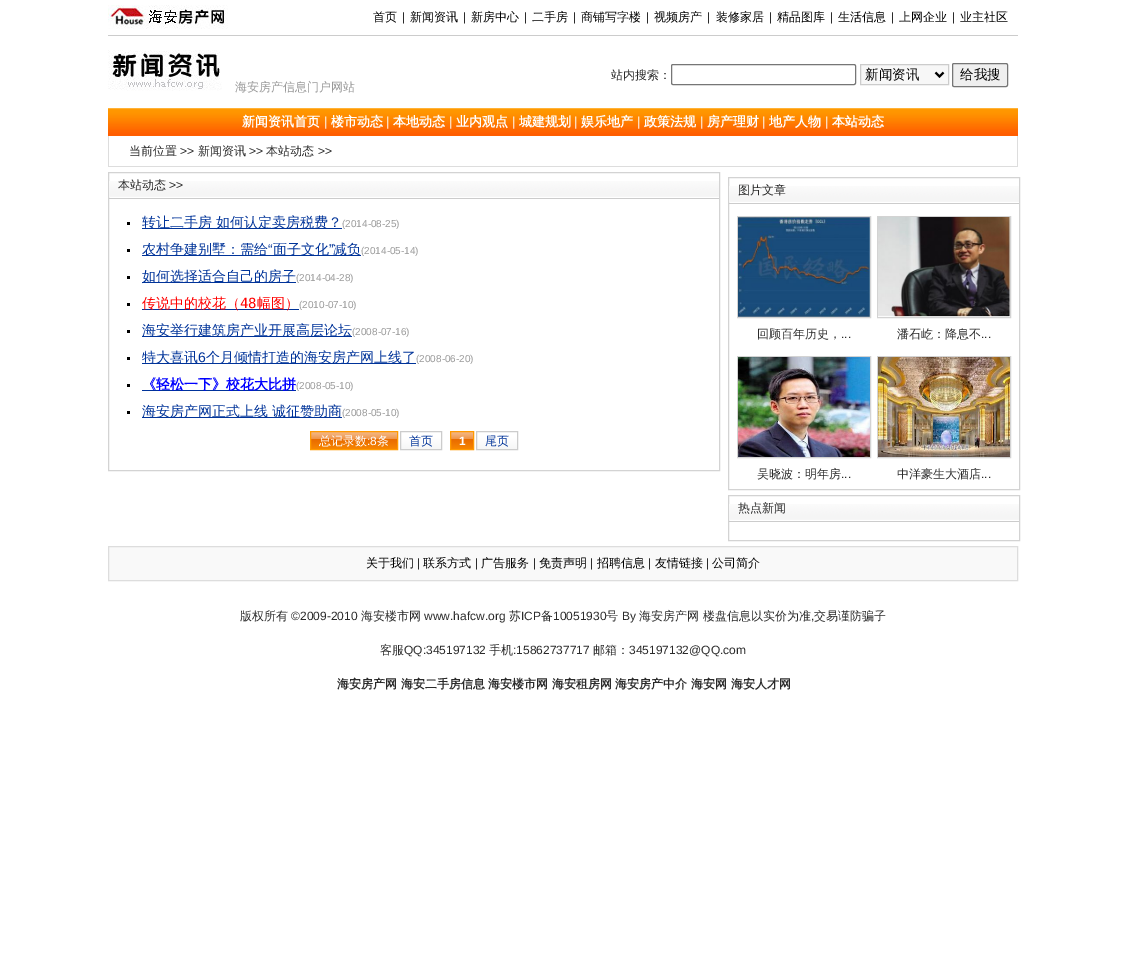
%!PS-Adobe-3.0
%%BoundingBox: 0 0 1126 953
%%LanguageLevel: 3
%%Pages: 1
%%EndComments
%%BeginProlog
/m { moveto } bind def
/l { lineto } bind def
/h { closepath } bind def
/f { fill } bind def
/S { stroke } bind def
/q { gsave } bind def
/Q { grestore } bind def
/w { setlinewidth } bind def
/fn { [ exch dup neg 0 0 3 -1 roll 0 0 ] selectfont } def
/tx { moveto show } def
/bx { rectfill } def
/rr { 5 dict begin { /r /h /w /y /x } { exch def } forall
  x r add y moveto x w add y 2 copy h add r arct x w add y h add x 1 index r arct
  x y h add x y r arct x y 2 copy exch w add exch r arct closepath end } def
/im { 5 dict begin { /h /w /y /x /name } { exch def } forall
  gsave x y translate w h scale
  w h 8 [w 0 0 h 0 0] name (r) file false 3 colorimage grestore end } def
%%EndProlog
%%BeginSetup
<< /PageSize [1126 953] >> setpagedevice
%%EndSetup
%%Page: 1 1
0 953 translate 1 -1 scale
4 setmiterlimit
1 setgray
0 0 1126 953 bx
(image0.raw) 108 5 120 24 im
/WenQuanYiZenHei-Medium 12 fn
0 setgray
(首页) 373 21 tx
/LiberationSans-Regular 12 fn
0.169 setgray
(|) 402 21 tx
/WenQuanYiZenHei-Medium 12 fn
0 setgray
(新闻资讯) 410 21 tx
/LiberationSans-Regular 12 fn
0.169 setgray
(|) 463 21 tx
/WenQuanYiZenHei-Medium 12 fn
0 setgray
(新房中心) 471 21 tx
/LiberationSans-Regular 12 fn
0.169 setgray
(|) 524 21 tx
/WenQuanYiZenHei-Medium 12 fn
0 setgray
(二手房) 532 21 tx
/LiberationSans-Regular 12 fn
0.169 setgray
(|) 573 21 tx
/WenQuanYiZenHei-Medium 12 fn
0 setgray
(商铺写字楼) 581 21 tx
/LiberationSans-Regular 12 fn
0.169 setgray
(|) 646 21 tx
/WenQuanYiZenHei-Medium 12 fn
0 setgray
(视频房产) 654 21 tx
/LiberationSans-Regular 12 fn
0.169 setgray
(|) 707 21 tx
/WenQuanYiZenHei-Medium 12 fn
0 setgray
(装修家居) 716 21 tx
/LiberationSans-Regular 12 fn
0.169 setgray
(|) 769 21 tx
/WenQuanYiZenHei-Medium 12 fn
0 setgray
(精品图库) 777 21 tx
/LiberationSans-Regular 12 fn
0.169 setgray
(|) 830 21 tx
/WenQuanYiZenHei-Medium 12 fn
0 setgray
(生活信息) 838 21 tx
/LiberationSans-Regular 12 fn
0.169 setgray
(|) 891 21 tx
/WenQuanYiZenHei-Medium 12 fn
0 setgray
(上网企业) 899 21 tx
/LiberationSans-Regular 12 fn
0.169 setgray
(|) 952 21 tx
/WenQuanYiZenHei-Medium 12 fn
0 setgray
(业主社区) 960 21 tx
0.8 setgray
108 35 910 1 bx
0.169 setgray
(站内搜索：) 611 79 tx
0.463 setgray
671.5 64.5 184 20 1.5 rr S
0.969 setgray
860.5 64.5 m 948.5 64.5 l 948.5 84.5 l 860.5 84.5 l h q f Q
0.8 setgray
S
0 setgray
2 w
935.5 72.5 m 939.5 76.5 l 943.5 72.5 l S
/WenQuanYiZenHei-Medium 13.5 fn
(新闻资讯) 865 79 tx
0.937 setgray
952.5 63.5 55 23 1.5 rr q f Q
0.463 setgray
1 w
S
0 setgray
(给我搜) 960 79 tx
(image1.raw) 108 50 114 41 im
/WenQuanYiZenHei-Medium 12 fn
0.6 setgray
(海安房产信息门户网站) 235 91 tx
(image2.raw) 108 108 910 28 im
/WenQuanYiZenHei-Bold 13 fn
1 setgray
(新闻资讯首页) 242 126 tx
/LiberationSans-Regular 13 fn
(|) 324 126 tx
/WenQuanYiZenHei-Bold 13 fn
(楼市动态) 331 126 tx
/LiberationSans-Regular 13 fn
(|) 386 126 tx
/WenQuanYiZenHei-Bold 13 fn
(本地动态) 393 126 tx
/LiberationSans-Regular 13 fn
(|) 449 126 tx
/WenQuanYiZenHei-Bold 13 fn
(业内观点) 456 126 tx
/LiberationSans-Regular 13 fn
(|) 512 126 tx
/WenQuanYiZenHei-Bold 13 fn
(城建规划) 519 126 tx
/LiberationSans-Regular 13 fn
(|) 574 126 tx
/WenQuanYiZenHei-Bold 13 fn
(娱乐地产) 581 126 tx
/LiberationSans-Regular 13 fn
(|) 637 126 tx
/WenQuanYiZenHei-Bold 13 fn
(政策法规) 644 126 tx
/LiberationSans-Regular 13 fn
(|) 700 126 tx
/WenQuanYiZenHei-Bold 13 fn
(房产理财) 707 126 tx
/LiberationSans-Regular 13 fn
(|) 762 126 tx
/WenQuanYiZenHei-Bold 13 fn
(地产人物) 769 126 tx
/LiberationSans-Regular 13 fn
(|) 825 126 tx
/WenQuanYiZenHei-Bold 13 fn
(本站动态) 832 126 tx
0.867 setgray
1017 136 1 31 bx
108 166 910 1 bx
108 136 1 31 bx
/WenQuanYiZenHei-Medium 12 fn
0.169 setgray
(当前位置) 129 155 tx
/LiberationSans-Regular 12 fn
(>>) 180 155 tx
/WenQuanYiZenHei-Medium 12 fn
(新闻资讯) 198 155 tx
/LiberationSans-Regular 12 fn
(>>) 249 155 tx
/WenQuanYiZenHei-Medium 12 fn
(本站动态) 266 155 tx
/LiberationSans-Regular 12 fn
(>>) 318 155 tx
0.827 setgray
108.5 172.5 611 298 rectstroke
(image3.raw) 109 181 610 16 im
0.8 setgray
109 198 610 1 bx
/WenQuanYiZenHei-Medium 12 fn
0.169 setgray
(本站动态) 118 189 tx
/LiberationSans-Regular 12 fn
(>>) 169 189 tx
0 setgray
127 222 3 3 bx
0 0.2 0.6 setrgbcolor
142 228 200 1 bx
/WenQuanYiZenHei-Medium 14 fn
(转让二手房 如何认定卖房税费？) 142 227 tx
/LiberationSans-Regular 10 fn
0.6 setgray
(\(2014-08-25\)) 342 227 tx
0 setgray
127 249 3 3 bx
0 0.2 0.6 setrgbcolor
142 255 219 1 bx
/WenQuanYiZenHei-Medium 14 fn
(农村争建别墅：需给) 142 254 tx
/LiberationSans-Regular 14 fn
(“) 268 254 tx
/WenQuanYiZenHei-Medium 14 fn
(面子文化) 273 254 tx
/LiberationSans-Regular 14 fn
(”) 329 254 tx
/WenQuanYiZenHei-Medium 14 fn
(减负) 333 254 tx
/LiberationSans-Regular 10 fn
0.6 setgray
(\(2014-05-14\)) 361 254 tx
0 setgray
127 276 3 3 bx
0 0.2 0.6 setrgbcolor
142 282 154 1 bx
/WenQuanYiZenHei-Medium 14 fn
(如何选择适合自己的房子) 142 281 tx
/LiberationSans-Regular 10 fn
0.6 setgray
(\(2014-04-28\)) 296 281 tx
0 setgray
127 303 3 3 bx
0 0.2 0.6 setrgbcolor
142 309 157 1 bx
/WenQuanYiZenHei-Medium 14 fn
1 0 0 setrgbcolor
(传说中的校花（) 142 308 tx
/DejaVuSansMono-Regular 14 fn
(48) 240 308 tx
/WenQuanYiZenHei-Medium 14 fn
(幅图）) 257 308 tx
/LiberationSans-Regular 10 fn
0.6 setgray
(\(2010-07-10\)) 299 308 tx
0 setgray
127 330 3 3 bx
0 0.2 0.6 setrgbcolor
142 336 210 1 bx
/WenQuanYiZenHei-Medium 14 fn
(海安举行建筑房产业开展高层论坛) 142 335 tx
/LiberationSans-Regular 10 fn
0.6 setgray
(\(2008-07-16\)) 352 335 tx
0 setgray
127 357 3 3 bx
0 0.2 0.6 setrgbcolor
142 363 274 1 bx
/WenQuanYiZenHei-Medium 14 fn
(特大喜讯) 142 362 tx
/LiberationSans-Regular 14 fn
(6) 198 362 tx
/WenQuanYiZenHei-Medium 14 fn
(个月倾情打造的海安房产网上线了) 206 362 tx
/LiberationSans-Regular 10 fn
0.6 setgray
(\(2008-06-20\)) 416 362 tx
0 setgray
127 384 3 3 bx
0 0.2 0.6 setrgbcolor
142 390 154 1 bx
/WenQuanYiZenHei-Bold 14 fn
0 0 1 setrgbcolor
(《轻松一下》校花大比拼) 142 389 tx
/LiberationSans-Regular 10 fn
0.6 setgray
(\(2008-05-10\)) 296 389 tx
0 setgray
127 411 3 3 bx
0 0.2 0.6 setrgbcolor
142 417 200 1 bx
/WenQuanYiZenHei-Medium 14 fn
(海安房产网正式上线 诚征赞助商) 142 416 tx
/LiberationSans-Regular 10 fn
0.6 setgray
(\(2008-05-10\)) 342 416 tx
(image4.raw) 311 432 86 17 im
(image5.raw) 401 432 40 17 im
(image6.raw) 451 432 22 17 im
(image5.raw) 477 432 40 17 im
1 0.6 0 setrgbcolor
310.5 431.5 87 18 rectstroke
/WenQuanYiZenHei-Medium 12 fn
1 setgray
(总记录数) 319 445 tx
/LiberationSans-Regular 12 fn
(:8) 367 445 tx
/WenQuanYiZenHei-Medium 12 fn
(条) 377 445 tx
0.8 setgray
400.5 431.5 41 18 rectstroke
0 0.2 0.6 setrgbcolor
(首页) 409 445 tx
1 0.6 0 setrgbcolor
450.5 431.5 23 18 rectstroke
/LiberationSans-Bold 12 fn
1 setgray
(1) 459 445 tx
0.8 setgray
476.5 431.5 41 18 rectstroke
/WenQuanYiZenHei-Medium 12 fn
0 0.2 0.6 setrgbcolor
(尾页) 485 445 tx
0.827 setgray
728.5 177.5 291 312 rectstroke
(image7.raw) 729 186 290 16 im
0.8 setgray
729 203 290 1 bx
0.169 setgray
(图片文章) 738 194 tx
0.827 setgray
737.5 216.5 133 101 rectstroke
(image8.raw) 738 217 132 100 im
0.169 setgray
(回顾百年历史，) 757 338 tx
/LiberationSans-Regular 12 fn
(...) 841 338 tx
0.827 setgray
877.5 216.5 133 101 rectstroke
(image9.raw) 878 217 132 100 im
/WenQuanYiZenHei-Medium 12 fn
0.169 setgray
(潘石屹：降息不) 897 338 tx
/LiberationSans-Regular 12 fn
(...) 981 338 tx
0.827 setgray
737.5 356.5 133 101 rectstroke
(image10.raw) 738 357 132 100 im
/WenQuanYiZenHei-Medium 12 fn
0.169 setgray
(吴晓波：明年房) 757 478 tx
/LiberationSans-Regular 12 fn
(...) 841 478 tx
0.827 setgray
877.5 356.5 133 101 rectstroke
(image11.raw) 878 357 132 100 im
/WenQuanYiZenHei-Medium 12 fn
0.169 setgray
(中洋豪生大酒店) 897 478 tx
/LiberationSans-Regular 12 fn
(...) 981 478 tx
0.827 setgray
728.5 495.5 291 45 rectstroke
(image7.raw) 729 504 290 16 im
0.8 setgray
729 521 290 1 bx
/WenQuanYiZenHei-Medium 12 fn
0.169 setgray
(热点新闻) 738 512 tx
0.976 setgray
108.5 546.5 m 1017.5 546.5 l 1017.5 580.5 l 108.5 580.5 l h q f Q
0.867 setgray
S
0 setgray
(关于我们) 366 567 tx
/LiberationSans-Regular 12 fn
0.169 setgray
(|) 417 567 tx
/WenQuanYiZenHei-Medium 12 fn
0 setgray
(联系方式) 423 567 tx
/LiberationSans-Regular 12 fn
0.169 setgray
(|) 475 567 tx
/WenQuanYiZenHei-Medium 12 fn
0 setgray
(广告服务) 481 567 tx
/LiberationSans-Regular 12 fn
0.169 setgray
(|) 533 567 tx
/WenQuanYiZenHei-Medium 12 fn
0 setgray
(免责声明) 539 567 tx
/LiberationSans-Regular 12 fn
0.169 setgray
(|) 590 567 tx
/WenQuanYiZenHei-Medium 12 fn
0 setgray
(招聘信息) 597 567 tx
/LiberationSans-Regular 12 fn
0.169 setgray
(|) 648 567 tx
/WenQuanYiZenHei-Medium 12 fn
0 setgray
(友情链接) 655 567 tx
/LiberationSans-Regular 12 fn
0.169 setgray
(|) 706 567 tx
/WenQuanYiZenHei-Medium 12 fn
0 setgray
(公司简介) 712 567 tx
0.169 setgray
(版权所有) 240 620 tx
/LiberationSans-Regular 12 fn
(©2009-2010) 291 620 tx
/WenQuanYiZenHei-Medium 12 fn
(海安楼市网) 361 620 tx
/LiberationSans-Regular 12 fn
(www.hafcw.org) 424 620 tx
/WenQuanYiZenHei-Medium 12 fn
(苏) 509 620 tx
/LiberationSans-Regular 12 fn
(ICP) 521 620 tx
/WenQuanYiZenHei-Medium 12 fn
(备) 541 620 tx
/LiberationSans-Regular 12 fn
(10051930) 553 620 tx
/WenQuanYiZenHei-Medium 12 fn
(号) 606 620 tx
/LiberationSans-Regular 12 fn
(By) 622 620 tx
/WenQuanYiZenHei-Medium 12 fn
(海安房产网 楼盘信息以实价为准 交易谨防骗子) 639 620 tx
/LiberationSans-Regular 12 fn
(,) 811 620 tx
/WenQuanYiZenHei-Medium 12 fn
(客服) 380 654 tx
/LiberationSans-Regular 12 fn
(QQ:345197132) 404 654 tx
/WenQuanYiZenHei-Medium 12 fn
(手机) 489 654 tx
/LiberationSans-Regular 12 fn
(:15862737717) 513 654 tx
/WenQuanYiZenHei-Medium 12 fn
(邮箱：) 593 654 tx
/LiberationSans-Regular 12 fn
(345197132@QQ.com) 629 654 tx
/WenQuanYiZenHei-Bold 12 fn
(海安房产网 海安二手房信息 海安楼市网 海安租房网 海安房产中介 海安网 海安人才网) 337 688 tx
showpage
%%EOF
